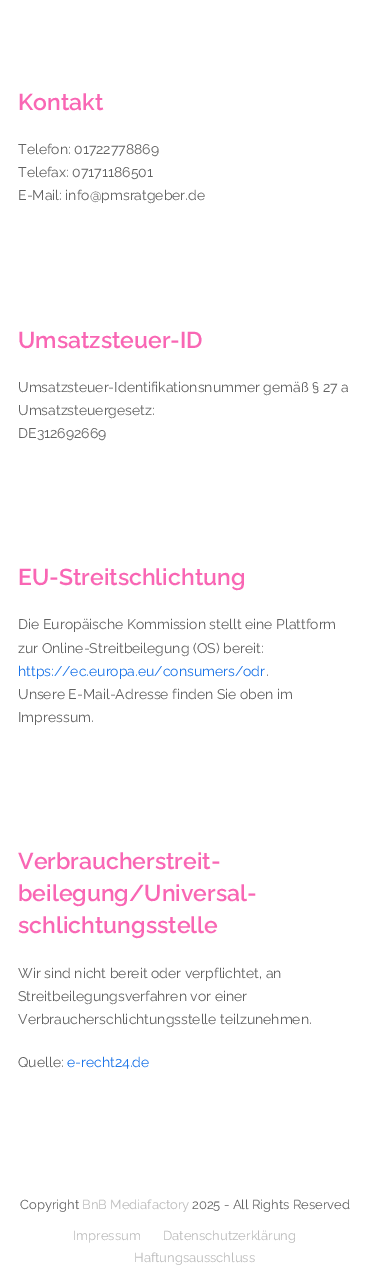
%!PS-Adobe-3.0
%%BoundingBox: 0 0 368 1288
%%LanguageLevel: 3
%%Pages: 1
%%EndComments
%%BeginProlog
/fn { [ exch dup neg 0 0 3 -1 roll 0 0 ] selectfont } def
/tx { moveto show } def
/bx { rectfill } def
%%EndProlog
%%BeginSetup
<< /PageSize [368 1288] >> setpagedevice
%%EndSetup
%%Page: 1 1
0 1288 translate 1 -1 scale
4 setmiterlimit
1 setgray
0 0 368 1288 bx
/Raleway-SemiBold 23 fn
0.976 0.4 0.706 setrgbcolor
(Kontakt) 18 110 tx
/Raleway-Regular 14 fn
0.38 setgray
(Telefon: 01722778869) 18 154 tx
(Telefax: 07171186501) 18 177 tx
(E-Mail: info@pmsratgeber.de) 18 200 tx
/Raleway-SemiBold 23 fn
0.976 0.4 0.706 setrgbcolor
(Umsatzsteuer-ID) 18 348 tx
/Raleway-Regular 14 fn
0.38 setgray
(Umsatzsteuer-Identifikationsnummer gemäß § 27 a) 18 392 tx
(Umsatzsteuergesetz:) 18 415 tx
(DE312692669) 18 438 tx
/Raleway-SemiBold 23 fn
0.976 0.4 0.706 setrgbcolor
(EU-Streitschlichtung) 18 585 tx
/Raleway-Regular 14 fn
0.38 setgray
(Die Europäische Kommission stellt eine Plattform) 18 629 tx
(zur Online-Streitbeilegung \(OS\) bereit:) 18 653 tx
0.102 0.451 0.91 setrgbcolor
(https://ec.europa.eu/consumers/odr) 18 676 tx
0.38 setgray
(.) 266 676 tx
(Unsere E-Mail-Adresse finden Sie oben im) 18 699 tx
(Impressum.) 18 722 tx
/Raleway-SemiBold 23 fn
0.976 0.4 0.706 setrgbcolor
(Verbraucherstreit-) 18 869 tx
(beilegung/Universal-) 18 901 tx
(schlichtungsstelle) 18 933 tx
/Raleway-Regular 14 fn
0.38 setgray
(Wir sind nicht bereit oder verpflichtet, an) 18 978 tx
(Streitbeilegungsverfahren vor einer) 18 1001 tx
(Verbraucherschlichtungsstelle teilzunehmen.) 18 1024 tx
(Quelle:) 18 1067 tx
0.102 0.451 0.91 setrgbcolor
(e-recht24.de) 67 1067 tx
/Raleway-Regular 13 fn
0.38 setgray
(Copyright) 20 1209 tx
0.733 setgray
(BnB Mediafactory) 82 1209 tx
0.38 setgray
(2025 - All Rights Reserved) 192 1209 tx
0.733 setgray
(Impressum) 73 1240 tx
(Datenschutzerklärung) 163 1240 tx
(Haftungsausschluss) 134 1262 tx
showpage
%%EOF
